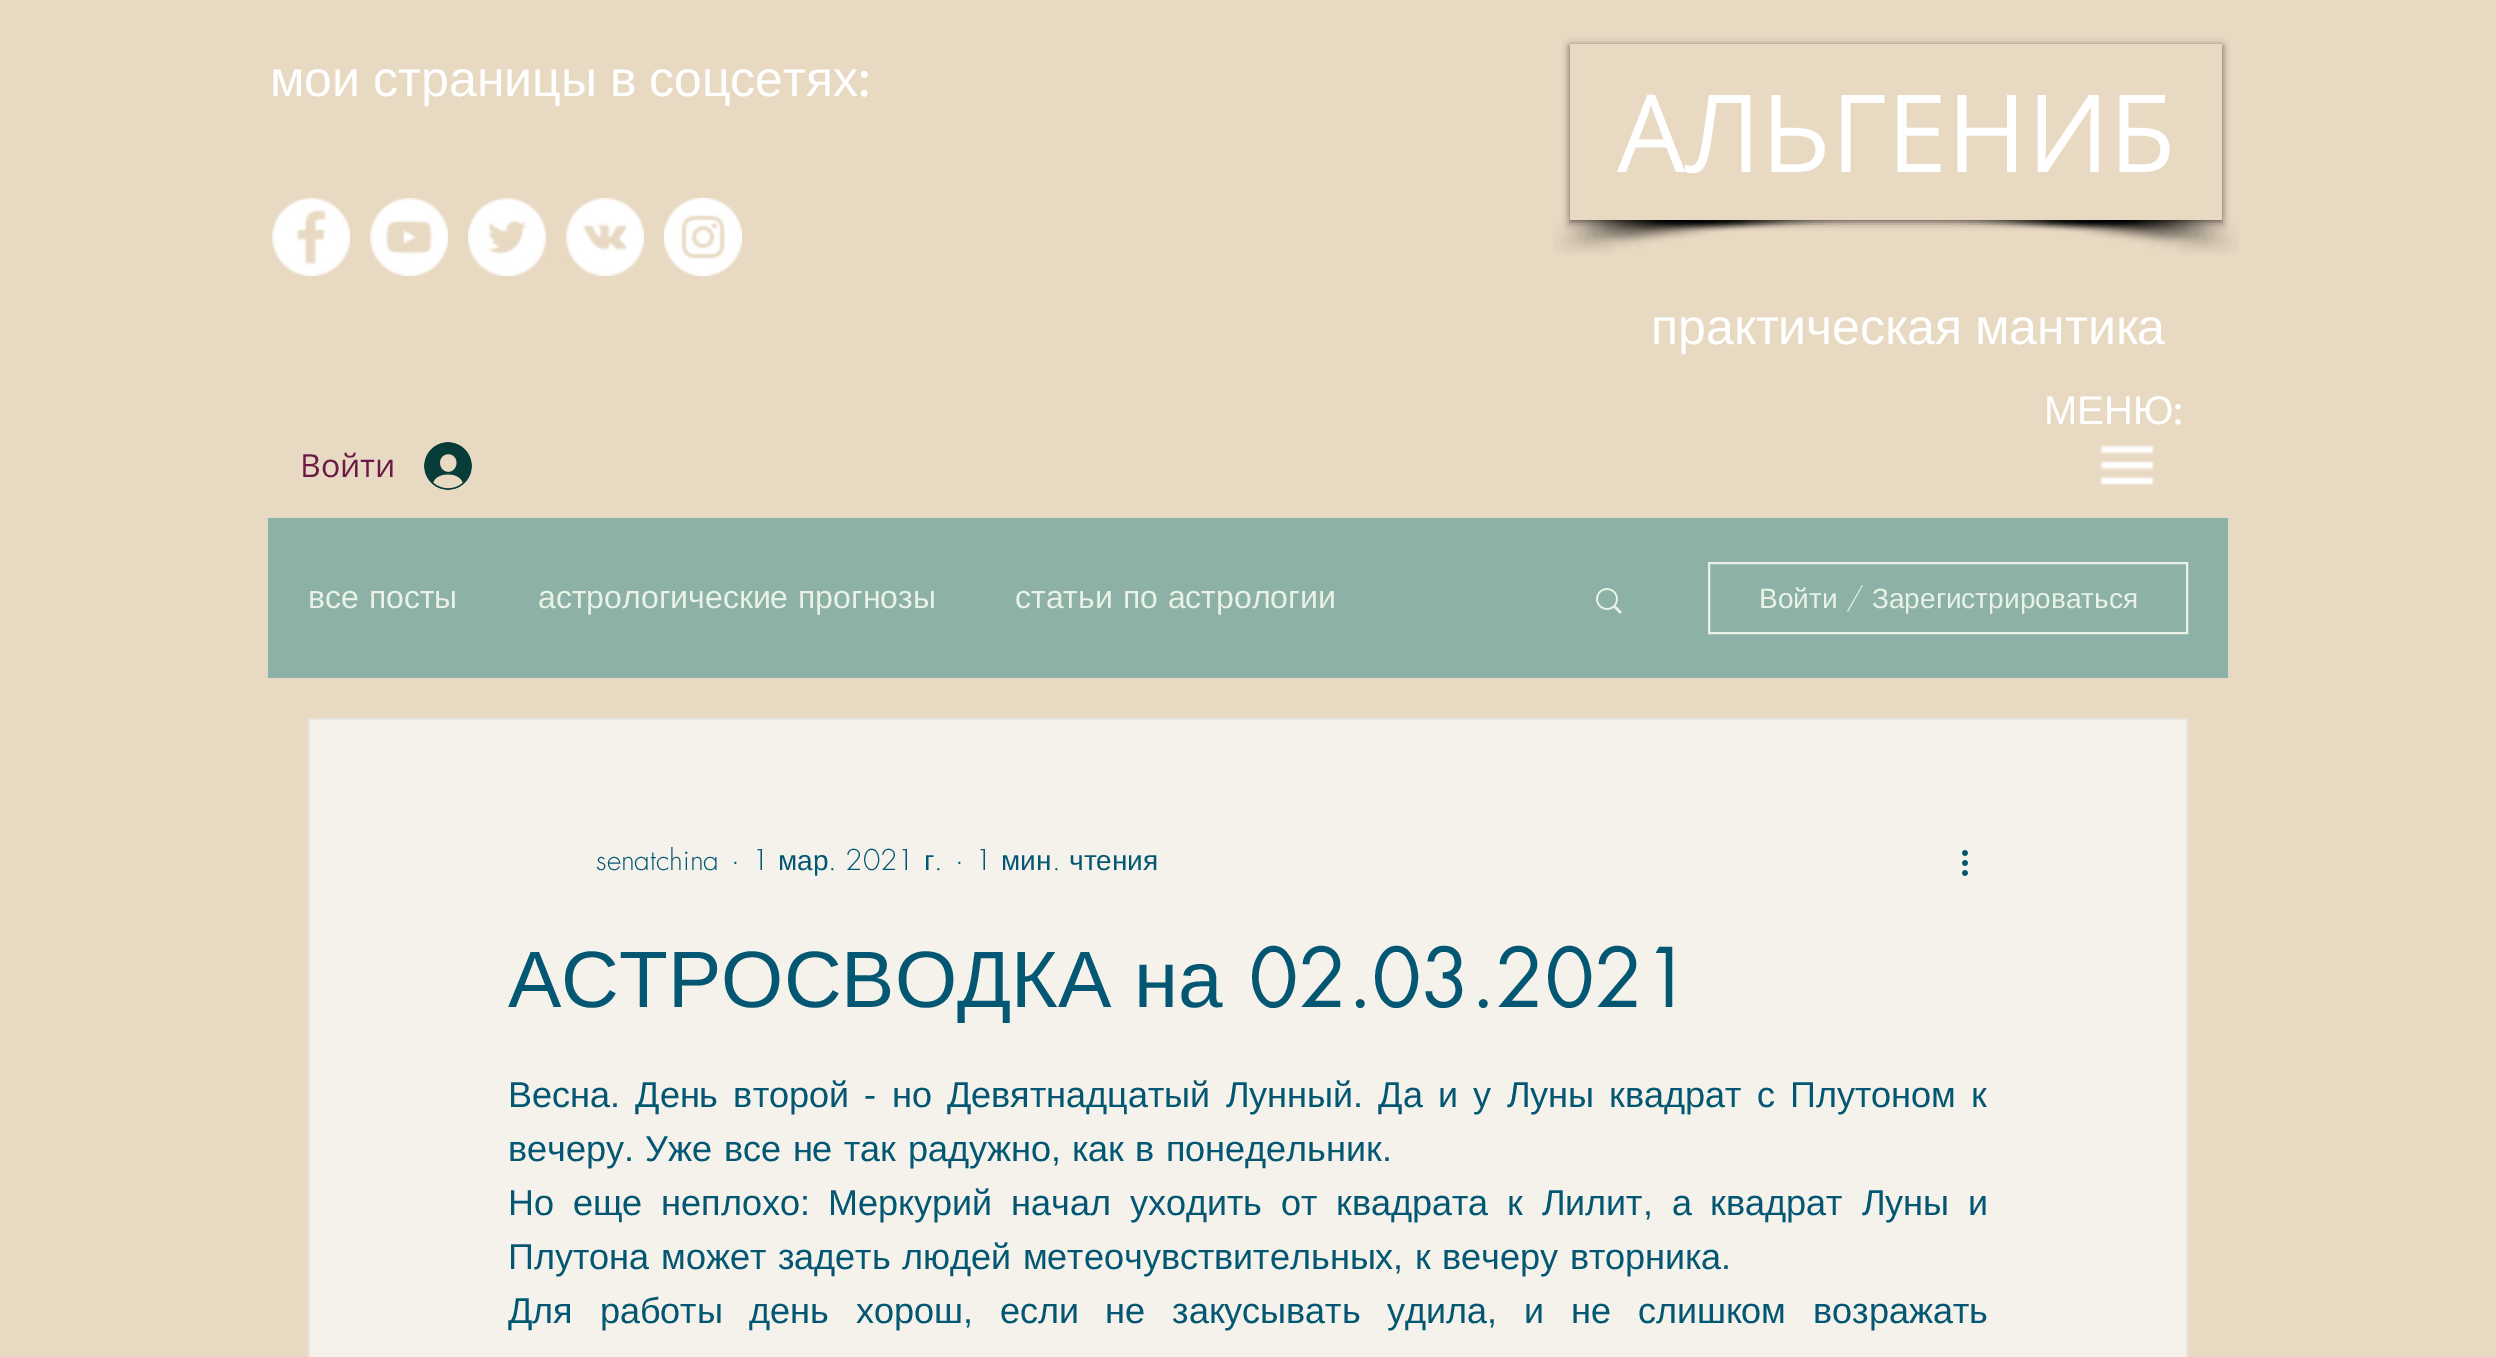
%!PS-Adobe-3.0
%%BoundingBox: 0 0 2496 1357
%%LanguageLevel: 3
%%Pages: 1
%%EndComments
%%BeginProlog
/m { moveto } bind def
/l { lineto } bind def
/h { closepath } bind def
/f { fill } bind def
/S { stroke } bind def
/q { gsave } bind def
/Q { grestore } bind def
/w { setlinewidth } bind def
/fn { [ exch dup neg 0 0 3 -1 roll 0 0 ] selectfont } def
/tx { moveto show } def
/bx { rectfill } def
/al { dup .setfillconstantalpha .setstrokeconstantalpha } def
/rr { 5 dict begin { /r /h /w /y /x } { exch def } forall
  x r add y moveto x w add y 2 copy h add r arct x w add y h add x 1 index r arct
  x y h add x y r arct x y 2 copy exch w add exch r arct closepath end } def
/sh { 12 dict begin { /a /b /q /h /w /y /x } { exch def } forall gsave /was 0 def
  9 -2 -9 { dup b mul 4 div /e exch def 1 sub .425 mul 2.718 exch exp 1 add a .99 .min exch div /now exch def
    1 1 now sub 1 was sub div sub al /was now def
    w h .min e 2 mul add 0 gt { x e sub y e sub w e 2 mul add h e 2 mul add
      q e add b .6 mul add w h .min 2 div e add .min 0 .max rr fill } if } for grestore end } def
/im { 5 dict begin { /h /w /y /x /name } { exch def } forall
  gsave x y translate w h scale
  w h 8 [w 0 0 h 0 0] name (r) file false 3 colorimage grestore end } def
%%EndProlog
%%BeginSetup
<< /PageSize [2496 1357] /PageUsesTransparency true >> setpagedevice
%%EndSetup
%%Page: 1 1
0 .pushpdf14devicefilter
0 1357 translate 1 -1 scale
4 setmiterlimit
0.91 0.851 0.765 setrgbcolor
0 0 2496 1357 bx
/LiberationSans-Regular 50 fn
1 setgray
270 96 m -1 0 32 (мои страницы в соцсетях) widthshow
/SpaceGrotesk-Regular 50 fn
(:) 858 96 tx
(image0.raw) 1553 220 307 35 im
(image1.raw) 1932 220 307 35 im
q
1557 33 m 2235 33 l 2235 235 l 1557 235 l h 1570 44 m 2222 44 l 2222 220 l 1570 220 l h eoclip newpath
0 setgray
1570 46 652 176 0 4 0.6 sh
Q
/OpenSans-Regular 108 fn
(АЛЬГЕНИБ) 1617 172 tx
(image2.raw) 272 198 78 78 im
(image3.raw) 370 198 78 78 im
(image4.raw) 468 198 78 78 im
(image5.raw) 566 198 78 78 im
(image6.raw) 664 198 78 78 im
/LiberationSans-Regular 50 fn
1651 344 m -1 0 32 (практическая мантика) widthshow
/LiberationSans-Regular 40 fn
(МЕНЮ) 2044 424 tx
/SpaceGrotesk-Regular 40 fn
(:) 2173 424 tx
/OpenSans-Regular 32 fn
0.42 0.102 0.271 setrgbcolor
(Войти) 300 477 tx
(image7.raw) 424 442 48 48 im
(image8.raw) 2099 445 56 41 im
0.553 0.694 0.651 setrgbcolor
268 518 1960 160 bx
/LiberationSans-Regular 32 fn
0.914 0.949 0.902 setrgbcolor
308 608 m 1 0 32 (все посты) widthshow
538 608 m 1 0 32 (астрологические прогнозы) widthshow
1015 608 m 1 0 32 (статьи по астрологии) widthshow
(image9.raw) 1596 588 26 26 im
2 w
1709 563 478 70 rectstroke
/LiberationSans-Regular 28 fn
(Войти) 1759 608 tx
/futura-Light 28 fn
(/) 1846 608 tx
/LiberationSans-Regular 28 fn
(Зарегистрироваться) 1872 608 tx
0.961 0.949 0.922 setrgbcolor
309 719 m 2187 719 l 2187 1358 l 309 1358 l h q f Q
0.91 0.902 0.878 setrgbcolor
S
/futura-Light 28 fn
0.012 0.341 0.447 setrgbcolor
(senatchina) 596 870 tx
(·) 731 870 tx
(1) 752 870 tx
/LiberationSans-Regular 28 fn
(мар) 778 870 tx
/futura-Light 28 fn
(. 2021) 828 870 tx
/LiberationSans-Regular 28 fn
(г) 924 870 tx
/futura-Light 28 fn
(.) 934 870 tx
(·) 955 870 tx
(1) 975 870 tx
/LiberationSans-Regular 28 fn
(мин) 1001 870 tx
(чтения) 1069 870 tx
/futura-Light 28 fn
(.) 1052 870 tx
(image10.raw) 1962 850 6 26 im
/LiberationSans-Regular 80 fn
508 1007 m 1 0 32 (АСТРОСВОДКА на) widthshow
/futura-Regular 80 fn
(02.03.2021) 1249 1007 tx
/LiberationSans-Regular 36 fn
508 1107 m 5.25 0 32 (Весна. День второй - но Девятнадцатый Лунный. Да и у Луны квадрат с Плутоном к) widthshow
508 1161 m 1.5 0 32 (вечеру. Уже все не так радужно, как в понедельник.) widthshow
508 1215 m 8.75 0 32 (Но еще неплохо: Меркурий начал уходить от квадрата к Лилит, а квадрат Луны и) widthshow
508 1269 m 1.5 0 32 (Плутона может задеть людей метеочувствительных, к вечеру вторника.) widthshow
508 1323 m 16.75 0 32 (Для работы день хорош, если не закусывать удила, и не слишком возражать) widthshow
.poppdf14devicefilter showpage
%%EOF
